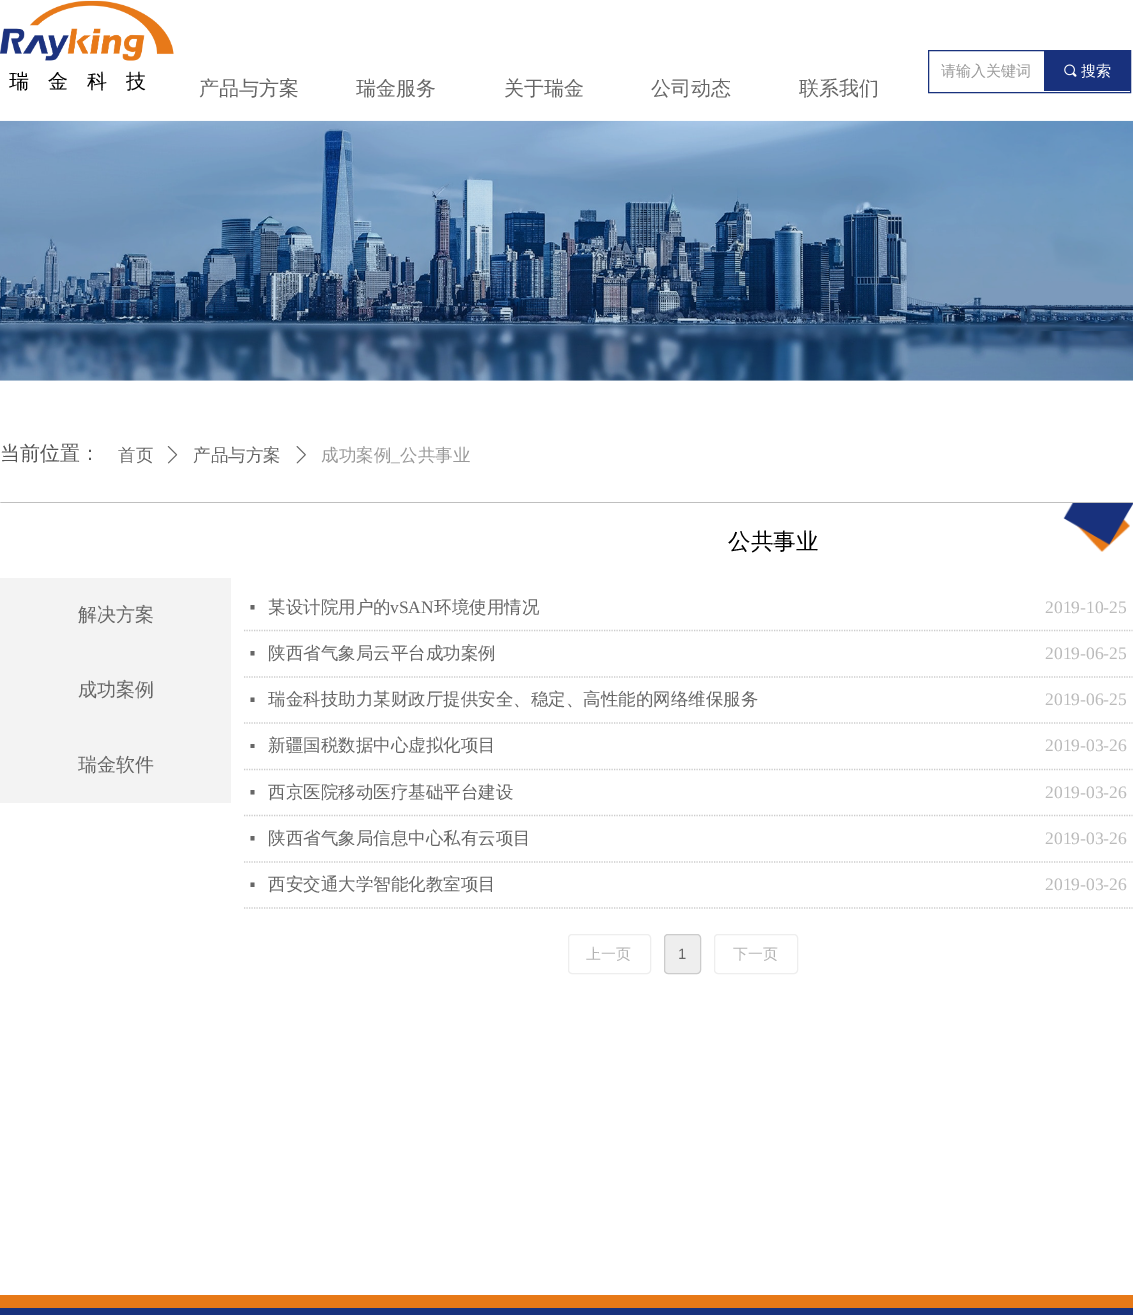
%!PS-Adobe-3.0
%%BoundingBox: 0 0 1133 1315
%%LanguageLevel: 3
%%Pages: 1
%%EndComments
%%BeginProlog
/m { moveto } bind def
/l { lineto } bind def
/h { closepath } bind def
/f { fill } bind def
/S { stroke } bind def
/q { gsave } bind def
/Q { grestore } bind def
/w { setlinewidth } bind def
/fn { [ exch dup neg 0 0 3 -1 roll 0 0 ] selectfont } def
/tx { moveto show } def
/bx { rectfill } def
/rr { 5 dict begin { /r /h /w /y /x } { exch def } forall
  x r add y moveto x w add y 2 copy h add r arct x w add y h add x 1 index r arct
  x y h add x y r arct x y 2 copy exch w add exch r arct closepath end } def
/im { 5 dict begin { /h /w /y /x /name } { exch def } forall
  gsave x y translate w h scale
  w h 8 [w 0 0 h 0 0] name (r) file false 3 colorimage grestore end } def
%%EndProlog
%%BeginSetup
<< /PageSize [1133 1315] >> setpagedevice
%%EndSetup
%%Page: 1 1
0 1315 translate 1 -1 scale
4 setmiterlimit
1 setgray
0 0 1133 1315 bx
(image0.raw) 0 0 174 61 im
/WenQuanYiZenHei-Medium 20 fn
0 setgray
9 88 m 19 0 (瑞金科技) ashow
0.4 setgray
(产品与方案) 199 95 tx
(瑞金服务) 356 95 tx
(关于瑞金) 504 95 tx
(公司动态) 651 95 tx
(联系我们) 799 95 tx
0.094 0.192 0.49 setrgbcolor
928.5 50.5 202 42 rectstroke
/WenQuanYiZenHei-Medium 15 fn
0.6 setgray
(请输入关键词) 941 76 tx
0.094 0.192 0.49 setrgbcolor
1044 51 86 40 bx
(image1.raw) 1064 64 13 13 im
1 setgray
(搜索) 1081 76 tx
(image2.raw) 0 120 1133 261 im
/WenQuanYiZenHei-Medium 20 fn
0.333 setgray
(当前位置：) 0 460 tx
/WenQuanYiZenHei-Medium 17.5 fn
0.4 setgray
(首页) 118 461 tx
(image3.raw) 167 446 11 18 im
(产品与方案) 193 461 tx
(image4.raw) 296 446 10 18 im
0.6 setgray
(成功案例) 321 461 tx
/LiberationSerif-Regular 17.5 fn
(_) 391 461 tx
/WenQuanYiZenHei-Medium 17.5 fn
(公共事业) 400 461 tx
(image5.raw) 0 502 1133 50 im
/WenQuanYiZenHei-Medium 22.5 fn
0 setgray
(公共事业) 728 549 tx
0.953 setgray
0 578 231 225 bx
/WenQuanYiZenHei-Medium 19 fn
0.4 setgray
(解决方案) 78 621 tx
(成功案例) 78 696 tx
(瑞金软件) 78 771 tx
0.8 setgray
1.2 w
[1.25 1.25] 0 setdash
244 630.5 m 1132.5 630.5 l S
0.4 setgray
250.5 605 m 254.5 605 l 254.5 609.5 l 250.5 609.5 l h f
/WenQuanYiZenHei-Medium 17.5 fn
(某设计院用户的) 268 613 tx
/LiberationSerif-Regular 17.5 fn
(vSAN) 390 613 tx
/WenQuanYiZenHei-Medium 17.5 fn
(环境使用情况) 434 613 tx
/LiberationSerif-Regular 17.5 fn
0.733 setgray
(2019-10-25) 1045 613 tx
0.8 setgray
244 677 m 1132.5 677 l S
0.4 setgray
250.5 651 m 254.5 651 l 254.5 655.5 l 250.5 655.5 l h f
/WenQuanYiZenHei-Medium 17.5 fn
(陕西省气象局云平台成功案例) 268 659 tx
/LiberationSerif-Regular 17.5 fn
0.733 setgray
(2019-06-25) 1045 659 tx
0.8 setgray
244 723 m 1132.5 723 l S
0.4 setgray
250.5 697.5 m 254.5 697.5 l 254.5 702 l 250.5 702 l h f
q
268 678 765 45 rectclip
/WenQuanYiZenHei-Medium 17.5 fn
(瑞金科技助力某财政厅提供安全、稳定、高性能的网络维保服务) 268 705 tx
Q
0.733 setgray
(2019-06-25) 1045 705 tx
0.8 setgray
244 769.5 m 1132.5 769.5 l S
0.4 setgray
250.5 744 m 254.5 744 l 254.5 748 l 250.5 748 l h f
/WenQuanYiZenHei-Medium 17.5 fn
(新疆国税数据中心虚拟化项目) 268 751 tx
/LiberationSerif-Regular 17.5 fn
0.733 setgray
(2019-03-26) 1045 751 tx
0.8 setgray
244 815.5 m 1132.5 815.5 l S
0.4 setgray
250.5 790 m 254.5 790 l 254.5 794.5 l 250.5 794.5 l h f
/WenQuanYiZenHei-Medium 17.5 fn
(西京医院移动医疗基础平台建设) 268 798 tx
/LiberationSerif-Regular 17.5 fn
0.733 setgray
(2019-03-26) 1045 798 tx
0.8 setgray
244 862 m 1132.5 862 l S
0.4 setgray
250.5 836 m 254.5 836 l 254.5 840.5 l 250.5 840.5 l h f
/WenQuanYiZenHei-Medium 17.5 fn
(陕西省气象局信息中心私有云项目) 268 844 tx
/LiberationSerif-Regular 17.5 fn
0.733 setgray
(2019-03-26) 1045 844 tx
0.8 setgray
244 908 m 1132.5 908 l S
0.4 setgray
250.5 882.5 m 254.5 882.5 l 254.5 887 l 250.5 887 l h f
/WenQuanYiZenHei-Medium 17.5 fn
(西安交通大学智能化教室项目) 268 890 tx
/LiberationSerif-Regular 17.5 fn
0.733 setgray
(2019-03-26) 1045 890 tx
0.933 setgray
1 w
[] 0 setdash
568.5 934.5 82 39 3.5 rr S
/WenQuanYiZenHei-Medium 15 fn
0.702 setgray
(上一页) 586 959 tx
0.933 setgray
664.5 934.5 36 39 3.5 rr q f Q
0.8 setgray
S
/LiberationSans-Regular 15 fn
0.4 setgray
(1) 678 959 tx
0.933 setgray
714.5 934.5 83 39 3.5 rr S
/WenQuanYiZenHei-Medium 15 fn
0.702 setgray
(下一页) 733 959 tx
0.094 0.192 0.49 setrgbcolor
0 1308 1133 7 bx
0.906 0.475 0.09 setrgbcolor
0 1295 1133 13 bx
showpage
%%EOF
